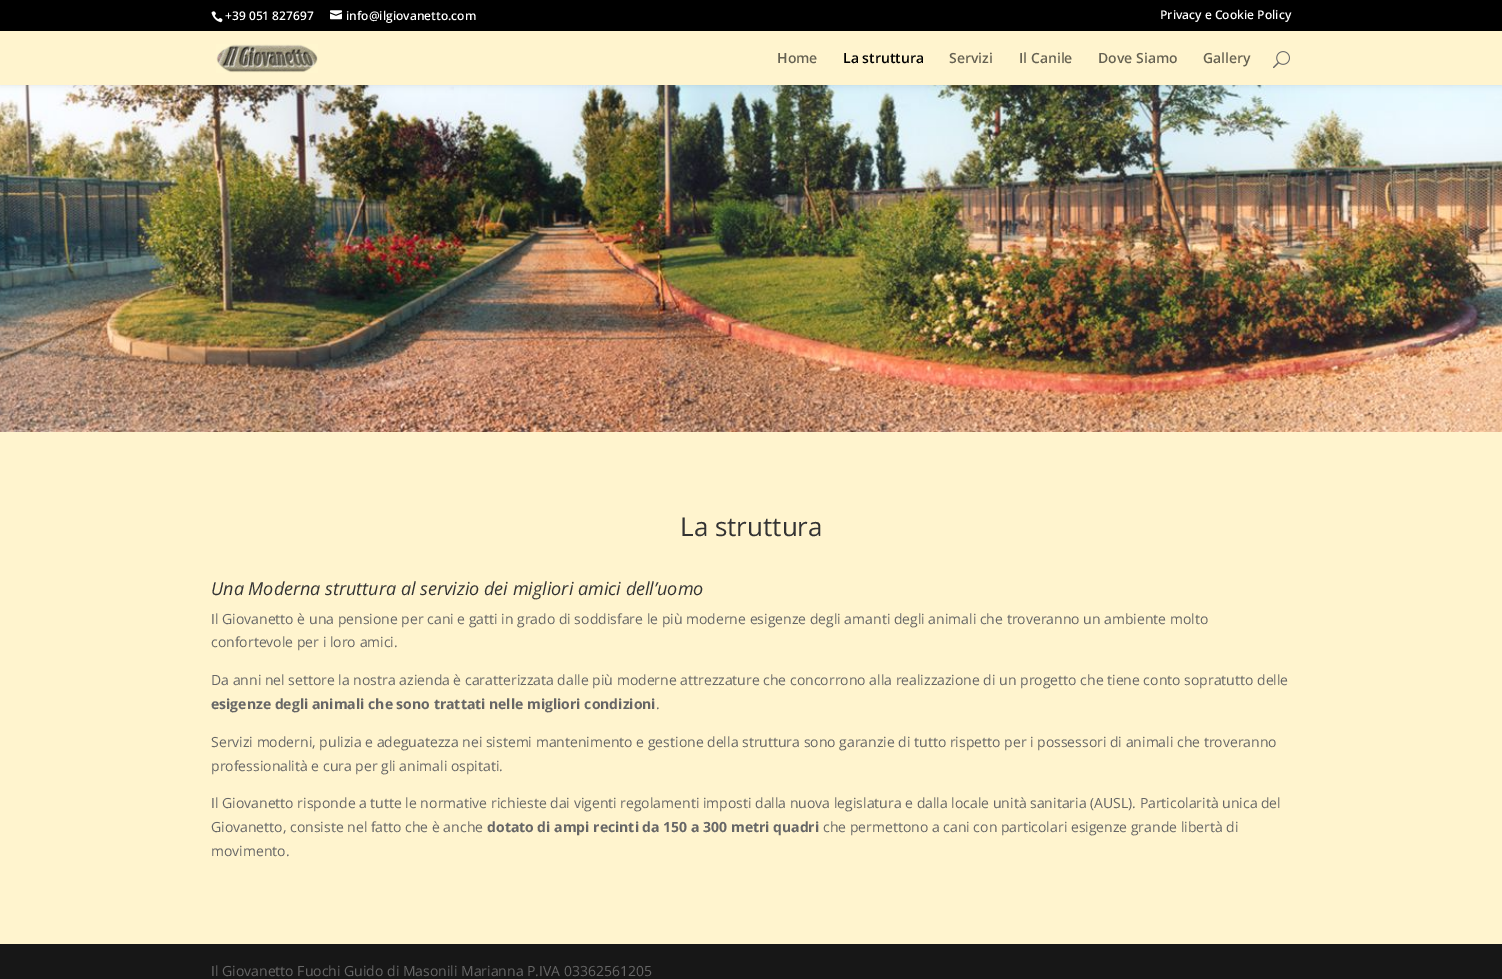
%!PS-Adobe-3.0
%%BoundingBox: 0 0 1502 979
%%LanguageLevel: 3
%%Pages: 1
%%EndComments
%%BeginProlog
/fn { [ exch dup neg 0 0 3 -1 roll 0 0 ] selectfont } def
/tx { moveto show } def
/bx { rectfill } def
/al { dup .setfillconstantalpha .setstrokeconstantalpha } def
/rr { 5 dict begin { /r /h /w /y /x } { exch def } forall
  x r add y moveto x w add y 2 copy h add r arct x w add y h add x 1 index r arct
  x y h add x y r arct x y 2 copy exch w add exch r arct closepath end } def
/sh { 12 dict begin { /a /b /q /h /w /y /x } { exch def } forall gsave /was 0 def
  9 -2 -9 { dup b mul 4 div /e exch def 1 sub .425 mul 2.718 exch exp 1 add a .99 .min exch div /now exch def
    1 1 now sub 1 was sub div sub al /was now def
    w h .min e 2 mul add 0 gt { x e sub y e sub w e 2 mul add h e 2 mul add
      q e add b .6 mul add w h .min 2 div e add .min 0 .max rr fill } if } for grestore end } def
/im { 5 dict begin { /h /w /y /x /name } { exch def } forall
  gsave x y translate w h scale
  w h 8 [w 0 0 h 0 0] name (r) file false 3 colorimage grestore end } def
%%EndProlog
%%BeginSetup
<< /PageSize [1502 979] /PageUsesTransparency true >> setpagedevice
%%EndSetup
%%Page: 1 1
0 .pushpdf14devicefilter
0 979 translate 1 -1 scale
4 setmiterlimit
1 0.957 0.808 setrgbcolor
0 0 1502 979 bx
(image4.raw) 0 85 1502 347 im
0 setgray
0 31 1502 54 0 3.5 0.1 sh
0 0 1502 31 bx
(image0.raw) 211 11 12 12 im
/OpenSans-SemiBold 12 fn
1 setgray
(+39 051 827697) 225 20 tx
(image1.raw) 330 10 12 10 im
(info@ilgiovanetto.com) 346 20 tx
(Privacy e Cookie Policy) 1160 19 tx
1 0.957 0.808 setrgbcolor
0 31 1502 54 bx
(image2.raw) 216 44 102 29 im
/OpenSans-SemiBold 14 fn
0.4 0.384 0.322 setrgbcolor
(Home) 777 63 tx
0 setgray
(La struttura) 843 63 tx
0.4 0.384 0.322 setrgbcolor
(Servizi) 949 63 tx
(Il Canile) 1019 63 tx
(Dove Siamo) 1098 63 tx
(Gallery) 1203 63 tx
(image3.raw) 1273 51 17 18 im
/OpenSans-Regular 26 fn
0.2 setgray
(La struttura) 680 536 tx
/OpenSans-Italic 18 fn
(Una Moderna struttura al servizio dei migliori amici dell’uomo) 211 595 tx
/OpenSans-Regular 14 fn
0.4 setgray
(Il Giovanetto è una pensione per cani e gatti in grado di soddisfare le più moderne esigenze degli amanti degli animali che troveranno un ambiente molto) 211 624 tx
(confortevole per i loro amici.) 211 647 tx
(Da anni nel settore la nostra azienda è caratterizzata dalle più moderne attrezzature che concorrono alla realizzazione di un progetto che tiene conto sopratutto delle) 211 685 tx
/OpenSans-Bold 14 fn
(esigenze degli animali che sono trattati nelle migliori condizioni) 211 709 tx
/OpenSans-Regular 14 fn
(.) 656 709 tx
(Servizi moderni, pulizia e adeguatezza nei sistemi mantenimento e gestione della struttura sono garanzie di tutto rispetto per i possessori di animali che troveranno) 211 747 tx
(professionalità e cura per gli animali ospitati.) 211 771 tx
(Il Giovanetto risponde a tutte le normative richieste dai vigenti regolamenti imposti dalla nuova legislatura e dalla locale unità sanitaria \(AUSL\). Particolarità unica del) 211 808 tx
(Giovanetto, consiste nel fatto che è anche) 211 832 tx
/OpenSans-Bold 14 fn
(dotato di ampi recinti da 150 a 300 metri quadri) 487 832 tx
/OpenSans-Regular 14 fn
(che permettono a cani con particolari esigenze grande libertà di) 823 832 tx
(movimento.) 211 856 tx
0.09 setgray
0 944 1502 35 bx
0.4 setgray
(Il Giovanetto Fuochi Guido di Masonili Marianna P.IVA 03362561205) 211 976 tx
.poppdf14devicefilter showpage
%%EOF
